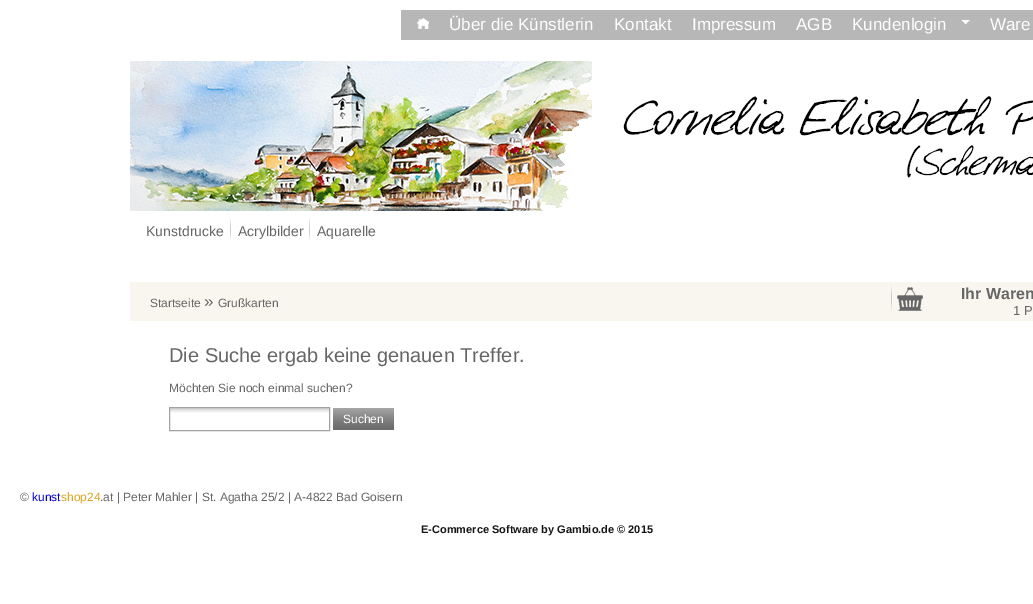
%!PS-Adobe-3.0
%%BoundingBox: 0 0 1033 604
%%LanguageLevel: 3
%%Pages: 1
%%EndComments
%%BeginProlog
/fn { [ exch dup neg 0 0 3 -1 roll 0 0 ] selectfont } def
/tx { moveto show } def
/bx { rectfill } def
/im { 5 dict begin { /h /w /y /x /name } { exch def } forall
  gsave x y translate w h scale
  w h 8 [w 0 0 h 0 0] name (r) file false 3 colorimage grestore end } def
%%EndProlog
%%BeginSetup
<< /PageSize [1033 604] >> setpagedevice
%%EndSetup
%%Page: 1 1
0 604 translate 1 -1 scale
4 setmiterlimit
1 setgray
0 0 1033 604 bx
0.718 setgray
401 10 632 30 bx
(image0.raw) 417 18 12 11 im
/LiberationSans-Regular 17 fn
1 setgray
(Über die Künstlerin) 449 30 tx
(Kontakt) 614 30 tx
(Impressum) 692 30 tx
(AGB) 796 30 tx
(Kundenlogin) 852 30 tx
(image1.raw) 961 20 9 5 im
(Ware) 990 30 tx
(image2.raw) 130 61 903 150 im
(image3.raw) 230 218 1 23 im
/LiberationSans-Regular 14 fn
0.4 setgray
(Kunstdrucke) 146 236 tx
(image3.raw) 309 218 1 23 im
(Acrylbilder) 238 236 tx
(Aquarelle) 317 236 tx
0.973 0.965 0.937 setrgbcolor
130 282 903 39 bx
/LiberationSans-Regular 12 fn
0.4 setgray
(Startseite) 150 307 tx
/LiberationSans-Regular 17 fn
(») 204 307 tx
/LiberationSans-Regular 12 fn
(Grußkarten) 218 307 tx
(image4.raw) 891 284 2 28 im
(image5.raw) 897 287 26 24 im
/LiberationSans-Bold 16 fn
(Ihr Waren) 961 299 tx
/LiberationSans-Regular 13 fn
(1 P) 1013 315 tx
/LiberationSans-Regular 20 fn
(Die Suche ergab keine genauen Treffer.) 169 362 tx
/LiberationSans-Regular 12 fn
(Möchten Sie noch einmal suchen?) 169 392 tx
(image6.raw) 170 408 159 5 im
0.639 setgray
169.5 407.5 160 23 rectstroke
0.784 setgray
333 408 61 22 bx
(image7.raw) 333 408 61 22 im
1 setgray
(Suchen) 343 423 tx
0.4 setgray
(©) 20 501 tx
0 0 0.804 setrgbcolor
(kunst) 32 501 tx
0.855 0.647 0.125 setrgbcolor
(shop24) 61 501 tx
0.4 setgray
(.at | Peter Mahler | St. Agatha 25/2 | A-4822 Bad Goisern) 100 501 tx
/LiberationSans-Bold 11 fn
0.09 0.082 0.082 setrgbcolor
(E-Commerce Software by Gambio.de © 2015) 421 533 tx
showpage
%%EOF
